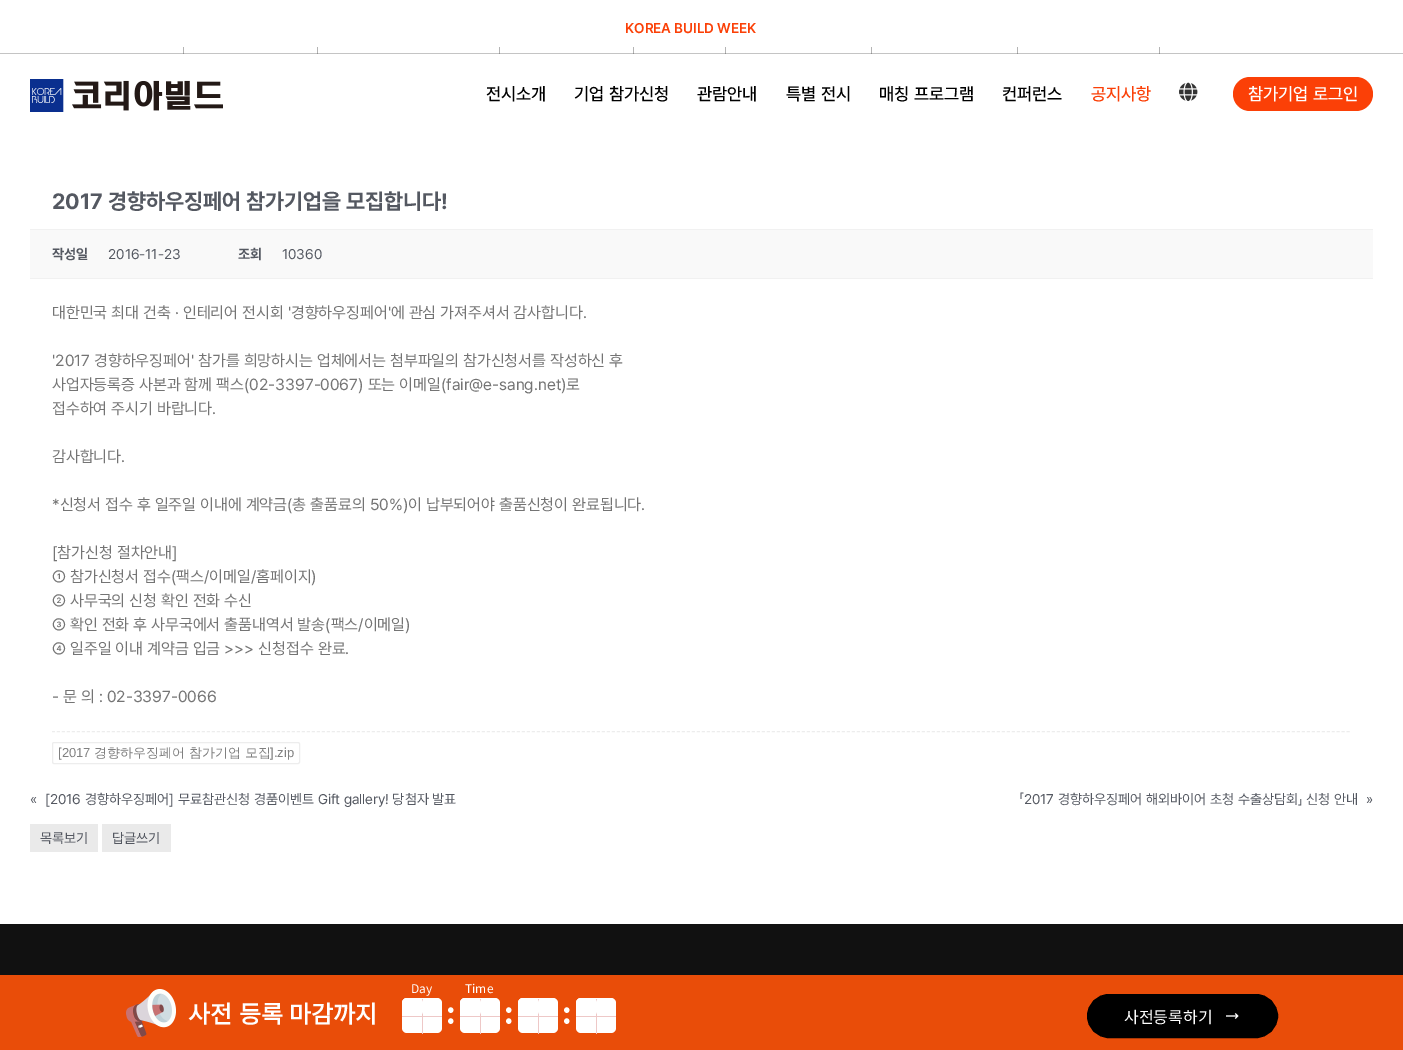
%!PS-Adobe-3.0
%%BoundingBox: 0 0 1403 1050
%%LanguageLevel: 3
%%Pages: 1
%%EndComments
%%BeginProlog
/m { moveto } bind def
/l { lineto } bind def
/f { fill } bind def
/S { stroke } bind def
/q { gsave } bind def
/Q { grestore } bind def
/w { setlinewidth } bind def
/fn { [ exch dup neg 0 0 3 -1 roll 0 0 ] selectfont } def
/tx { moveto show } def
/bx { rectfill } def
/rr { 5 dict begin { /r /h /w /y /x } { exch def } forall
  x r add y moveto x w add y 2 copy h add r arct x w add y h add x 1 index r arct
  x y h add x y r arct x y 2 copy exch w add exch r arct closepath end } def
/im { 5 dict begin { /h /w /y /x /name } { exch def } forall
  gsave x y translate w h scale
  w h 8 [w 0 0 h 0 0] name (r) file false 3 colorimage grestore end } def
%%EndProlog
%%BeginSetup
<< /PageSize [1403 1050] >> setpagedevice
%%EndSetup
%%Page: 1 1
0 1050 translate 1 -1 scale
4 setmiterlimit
1 setgray
0 0 1403 1050 bx
0.706 setgray
1159 47 1 12 bx
1017 47 1 12 bx
871 47 1 12 bx
725 47 1 12 bx
633 47 1 12 bx
499 47 1 12 bx
317 47 1 12 bx
183 47 1 12 bx
0.769 setgray
0 53 1403 1 bx
0.569 setgray
1159 53 1 1 bx
1017 53 1 1 bx
871 53 1 1 bx
725 53 1 1 bx
633 53 1 1 bx
499 53 1 1 bx
317 53 1 1 bx
183 53 1 1 bx
/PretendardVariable-SemiBold 14 fn
0.984 0.251 0.027 setrgbcolor
(KOREA BUILD WEEK) 625 33 tx
1 setgray
183 54 977 5 bx
(image0.raw) 30 79 193 33 im
/PretendardVariable-Medium 17.5 fn
0 setgray
(전시소개) 486 100 tx
(기업 참가신청) 574 100 tx
(관람안내) 697 100 tx
(특별 전시) 786 100 tx
(매칭 프로그램) 879 100 tx
(컨퍼런스) 1002 100 tx
0.984 0.251 0.027 setrgbcolor
(공지사항) 1091 100 tx
(image1.raw) 1179 82 19 20 im
1233 77 140 34 17 rr f
1 setgray
(참가기업 로그인) 1248 100 tx
/PretendardVariable-Bold 22 fn
0.329 0.345 0.38 setrgbcolor
(2017 경향하우징페어 참가기업을 모집합니다!) 52 209 tx
0.976 setgray
30 230 1343 48 bx
0.945 setgray
30 229 1343 1 bx
30 278 1343 1 bx
/PretendardVariable-Bold 14 fn
0.329 0.345 0.38 setrgbcolor
(작성일) 52 259 tx
/PretendardVariable-Regular 14 fn
(2016-11-23) 108 259 tx
/PretendardVariable-Bold 14 fn
(조회) 238 259 tx
/PretendardVariable-Regular 14 fn
(10360) 282 259 tx
/PretendardVariable-Regular 16 fn
0.455 setgray
(대한민국 최대 건축 · 인테리어 전시회 '경향하우징페어'에 관심 가져주셔서 감사합니다.) 52 318 tx
('2017 경향하우징페어' 참가를 희망하시는 업체에서는 첨부파일의 참가신청서를 작성하신 후) 52 366 tx
(사업자등록증 사본과 함께 팩스\(02-3397-0067\) 또는 이메일\(fair@e-sang.net\)로) 52 390 tx
(접수하여 주시기 바랍니다.) 52 414 tx
(감사합니다.) 52 462 tx
(*신청서 접수 후 일주일 이내에 계약금\(총 출품료의 50%\)이 납부되어야 출품신청이 완료됩니다.) 52 510 tx
([참가신청 절차안내]) 52 558 tx
(① 참가신청서 접수\(팩스/이메일/홈페이지\)) 52 582 tx
(② 사무국의 신청 확인 전화 수신) 52 606 tx
(③ 확인 전화 후 사무국에서 출품내역서 발송\(팩스/이메일\)) 52 630 tx
(④ 일주일 이내 계약금 입금 >>> 신청접수 완료.) 52 654 tx
(- 문 의 : 02-3397-0066) 52 702 tx
0.929 setgray
[3 2] 0 setdash
52 731.5 m 1351 731.5 l S
[] 0 setdash
52.5 742.5 247 21 1.5 rr S
/LiberationSans-Regular 13 fn
0.502 setgray
([2017) 58 757 tx
/WenQuanYiZenHei-Medium 13 fn
(경향하우징페어 참가기업 모집) 94 757 tx
/LiberationSans-Regular 13 fn
(].zip) 270 757 tx
/PretendardVariable-Regular 14 fn
0.329 0.345 0.38 setrgbcolor
(«) 30 804 tx
([2016 경향하우징페어] 무료참관신청 경품이벤트 Gift gallery! 당첨자 발표) 45 804 tx
(「2017 경향하우징페어 해외바이어 초청 수출상담회」 신청 안내) 1019 804 tx
(») 1366 804 tx
0.918 setgray
30 824 68 28 bx
0.329 0.345 0.38 setrgbcolor
(목록보기) 40 843 tx
0.918 setgray
102 824 69 28 bx
0.329 0.345 0.38 setrgbcolor
(답글쓰기) 112 843 tx
0.067 setgray
0 924 1403 51 bx
0.914 0.302 0.035 setrgbcolor
0 975 1403 75 bx
1 setgray
402 998 40 35 5 rr f
/NotoSansKR-Thin 12 fn
(Day) 411 993 tx
402 998 19 18 5 rr f
0.933 0.784 0.78 setrgbcolor
422 999 1 35 bx
1 setgray
422 998 19 18 5 rr f
0.933 0.784 0.78 setrgbcolor
402 1016 40 1 bx
1 setgray
460 998 40 35 5 rr f
(Time) 465 993 tx
460 998 19 18 5 rr f
0.933 0.784 0.78 setrgbcolor
480 999 1 35 bx
1 setgray
480 998 19 18 5 rr f
0.933 0.784 0.78 setrgbcolor
460 1016 40 1 bx
(image2.raw) 448 1007 6 17 im
(image2.raw) 506 1007 6 17 im
1 setgray
518 998 40 35 5 rr f
518 998 19 18 5 rr f
0.933 0.784 0.78 setrgbcolor
538 999 1 35 bx
1 setgray
538 998 19 18 5 rr f
0.933 0.784 0.78 setrgbcolor
518 1016 40 1 bx
(image2.raw) 564 1007 6 17 im
1 setgray
576 998 40 35 5 rr f
576 998 19 18 5 rr f
0.933 0.784 0.78 setrgbcolor
596 999 1 35 bx
1 setgray
596 998 19 18 5 rr f
0.933 0.784 0.78 setrgbcolor
576 1016 40 1 bx
(image3.raw) 126 989 50 48 im
/NotoSansKR-Bold 24 fn
1 setgray
188 1023 m 1 0 32 (사전 등록 마감까지) widthshow
0 setgray
1088 995 189 42 21 rr q f Q
2 w
S
/NotoSansKR-Thin 16 fn
1 setgray
(사전등록하기) 1124 1023 tx
(image4.raw) 1226 1013 13 6 im
showpage
%%EOF
